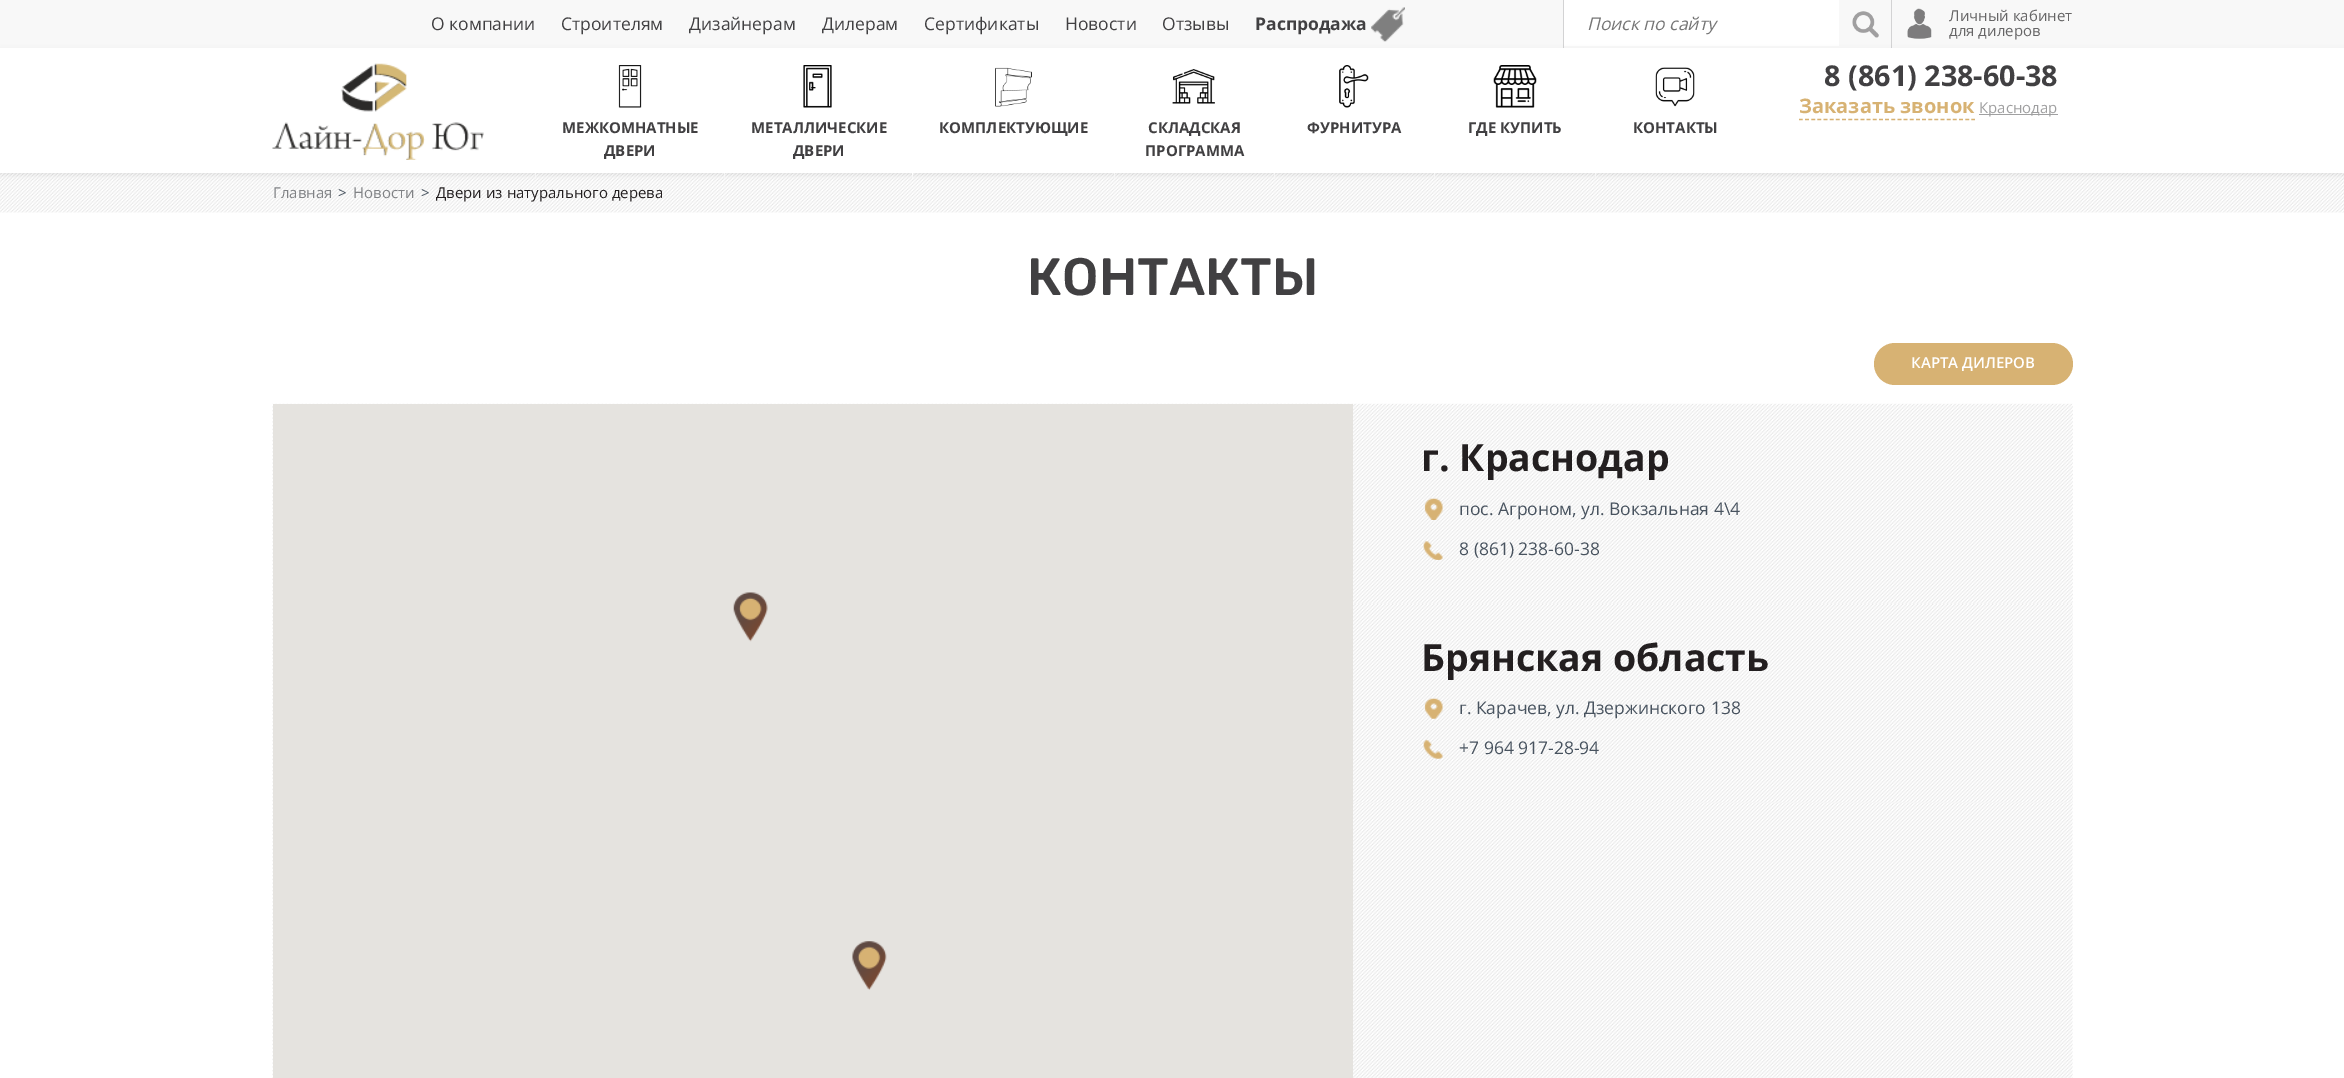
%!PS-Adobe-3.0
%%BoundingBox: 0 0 2344 1078
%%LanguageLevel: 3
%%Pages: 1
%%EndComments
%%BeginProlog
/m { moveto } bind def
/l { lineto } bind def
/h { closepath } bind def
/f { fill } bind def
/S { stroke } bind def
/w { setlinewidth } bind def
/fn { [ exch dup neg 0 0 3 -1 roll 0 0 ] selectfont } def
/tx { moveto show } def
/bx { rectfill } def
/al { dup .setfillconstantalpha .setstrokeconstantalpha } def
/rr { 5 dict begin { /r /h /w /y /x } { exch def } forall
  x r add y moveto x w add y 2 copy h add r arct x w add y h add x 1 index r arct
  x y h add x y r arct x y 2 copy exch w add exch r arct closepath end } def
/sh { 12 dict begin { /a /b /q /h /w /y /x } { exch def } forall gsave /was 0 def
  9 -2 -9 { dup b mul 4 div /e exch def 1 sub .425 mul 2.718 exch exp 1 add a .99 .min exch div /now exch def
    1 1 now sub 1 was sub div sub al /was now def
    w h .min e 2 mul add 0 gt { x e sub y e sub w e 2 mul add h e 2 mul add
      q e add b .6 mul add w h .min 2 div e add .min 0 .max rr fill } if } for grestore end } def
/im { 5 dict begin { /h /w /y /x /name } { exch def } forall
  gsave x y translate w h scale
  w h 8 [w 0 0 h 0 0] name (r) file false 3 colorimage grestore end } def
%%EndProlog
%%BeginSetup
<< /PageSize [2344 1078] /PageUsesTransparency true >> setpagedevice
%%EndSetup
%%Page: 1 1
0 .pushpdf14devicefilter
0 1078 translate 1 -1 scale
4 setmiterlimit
1 setgray
0 0 2344 1078 bx
0.973 setgray
0 0 2344 48 bx
/OpenSans-Regular 17.5 fn
0.255 0.251 0.259 setrgbcolor
(О компании) 431 30 tx
(Строителям) 561 30 tx
(Дизайнерам) 689 30 tx
(Дилерам) 822 30 tx
(Сертификаты) 924 30 tx
(Новости) 1065 30 tx
(Отзывы) 1162 30 tx
(image0.raw) 1371 7 34 35 im
/OpenSans-Bold 17.5 fn
(Распродажа) 1255 30 tx
0.827 0.827 0.831 setrgbcolor
1891 0 1 48 bx
1563 0 1 48 bx
1 setgray
1564 0 275 46 bx
/OpenSans-Italic 17.5 fn
0.459 setgray
(Поиск по сайту) 1587 30 tx
(image1.raw) 1852 11 27 27 im
(image2.raw) 1907 8 25 31 im
/OpenSans-Regular 15 fn
0.4 0.396 0.4 setrgbcolor
(Личный кабинет) 1949 21 tx
(для дилеров) 1949 36 tx
(image11.raw) 0 173 2344 40 im
0 setgray
0 50 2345 125 0 2.5 0.07 sh
1 setgray
0 48 2344 125 bx
(image3.raw) 272 63 212 97 im
/OpenSans-Bold 28.75 fn
0.255 0.251 0.259 setrgbcolor
(8 \(861\) 238-60-38) 1824 86 tx
/OpenSans-Bold 20 fn
0.843 0.698 0.451 setrgbcolor
(Заказать звонок) 1799 113 tx
1.2 w
[3.75 2.41] 0 setdash
1799 119.5 m 1975 119.5 l S
0.627 0.627 0.631 setrgbcolor
1979 114 79 1 bx
/OpenSans-Regular 15 fn
0.624 0.624 0.627 setrgbcolor
(Краснодар) 1979 113 tx
(image4.raw) 618 65 24 43 im
1 setgray
535 179 m 535 48 l 536 48 l 536 169 l h f
/OpenSans-Bold 15 fn
0.255 0.251 0.259 setrgbcolor
(МЕЖКОМНАТНЫЕ) 562 133 tx
(ДВЕРИ) 604 156 tx
(image5.raw) 803 65 29 43 im
1 setgray
724 179 m 724 48 l 725 48 l 725 169 l h f
0.255 0.251 0.259 setrgbcolor
(МЕТАЛЛИЧЕСКИЕ) 751 133 tx
(ДВЕРИ) 793 156 tx
(image6.raw) 995 67 37 40 im
1 setgray
912 179 m 912 48 l 914 48 l 914 169 l h f
0.255 0.251 0.259 setrgbcolor
(КОМПЛЕКТУЮЩИЕ) 939 133 tx
(image7.raw) 1172 69 43 35 im
1 setgray
1114 179 m 1114 48 l 1115 48 l 1115 169 l h f
0.255 0.251 0.259 setrgbcolor
(СКЛАДСКАЯ) 1148 133 tx
(ПРОГРАММА) 1145 156 tx
(image8.raw) 1339 65 30 43 im
1 setgray
1274 179 m 1274 48 l 1275 48 l 1275 169 l h f
0.255 0.251 0.259 setrgbcolor
(ФУРНИТУРА) 1307 133 tx
(image9.raw) 1493 65 44 43 im
1 setgray
1434 179 m 1434 48 l 1435 48 l 1435 169 l h f
0.255 0.251 0.259 setrgbcolor
(ГДЕ КУПИТЬ) 1468 133 tx
(image10.raw) 1655 67 40 40 im
1 setgray
1595 179 m 1595 48 l 1596 48 l 1596 169 l h f
0.255 0.251 0.259 setrgbcolor
(КОНТАКТЫ) 1633 133 tx
/OpenSans-Regular 15 fn
0.502 0.51 0.522 setrgbcolor
(Главная) 273 198 tx
0.282 0.325 0.373 setrgbcolor
(>) 338 198 tx
0.502 0.51 0.522 setrgbcolor
(Новости) 353 198 tx
0.282 0.325 0.373 setrgbcolor
(>) 421 198 tx
0.137 0.122 0.125 setrgbcolor
(Двери из натурального дерева) 436 198 tx
/Rubik-Medium 52.5 fn
0.255 0.251 0.259 setrgbcolor
(КОНТАКТЫ) 1027 295 tx
0.843 0.698 0.451 setrgbcolor
1874 343 199 42 21 rr f
/OpenSans-SemiBold 15 fn
1 setgray
(КАРТА ДИЛЕРОВ) 1911 368 tx
(image12.raw) 272 403 1801 675 im
0.898 0.89 0.875 setrgbcolor
273 404 1080 674 bx
(image13.raw) 733 592 35 50 im
(image14.raw) 852 941 35 49 im
(image15.raw) 2072 406 1 196 im
/OpenSans-Bold 37.5 fn
0.137 0.122 0.125 setrgbcolor
(г. Краснодар) 1421 471 tx
(image16.raw) 1424 498 19 22 im
/OpenSans-Regular 17.5 fn
0.282 0.325 0.373 setrgbcolor
(пос. Агроном, ул. Вокзальная 4\\4) 1459 515 tx
(image17.raw) 1423 541 20 19 im
(8 \(861\) 238-60-38) 1459 555 tx
(image18.raw) 1353 603 720 200 im
/OpenSans-Bold 37.5 fn
0.137 0.122 0.125 setrgbcolor
(Брянская область) 1421 671 tx
(image19.raw) 1424 698 19 21 im
/OpenSans-Regular 17.5 fn
0.282 0.325 0.373 setrgbcolor
(г. Карачев, ул. Дзержинского 138) 1459 714 tx
(image20.raw) 1423 739 20 20 im
(+7 964 917-28-94) 1459 754 tx
.poppdf14devicefilter showpage
%%EOF
